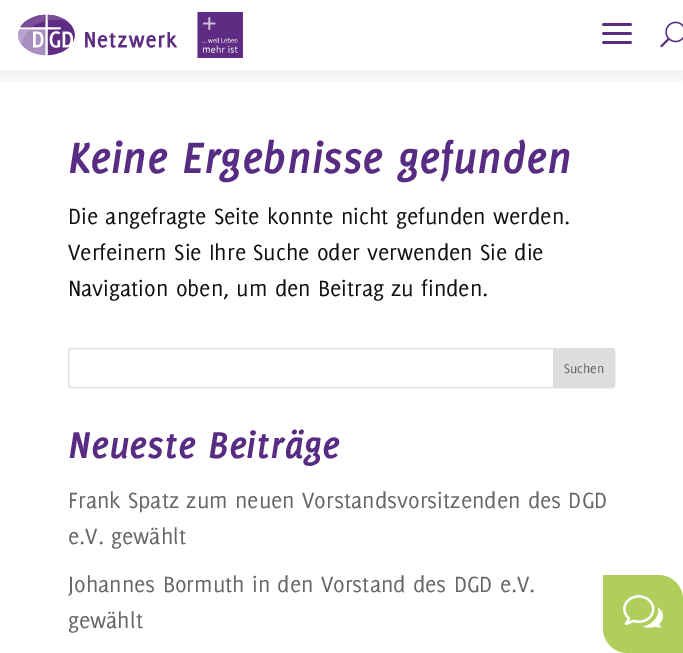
%!PS-Adobe-3.0
%%BoundingBox: 0 0 683 653
%%LanguageLevel: 3
%%Pages: 1
%%EndComments
%%BeginProlog
/m { moveto } bind def
/l { lineto } bind def
/c { curveto } bind def
/h { closepath } bind def
/f { fill } bind def
/S { stroke } bind def
/q { gsave } bind def
/Q { grestore } bind def
/fn { [ exch dup neg 0 0 3 -1 roll 0 0 ] selectfont } def
/tx { moveto show } def
/bx { rectfill } def
/al { dup .setfillconstantalpha .setstrokeconstantalpha } def
/rr { 5 dict begin { /r /h /w /y /x } { exch def } forall
  x r add y moveto x w add y 2 copy h add r arct x w add y h add x 1 index r arct
  x y h add x y r arct x y 2 copy exch w add exch r arct closepath end } def
/sh { 12 dict begin { /a /b /q /h /w /y /x } { exch def } forall gsave /was 0 def
  9 -2 -9 { dup b mul 4 div /e exch def 1 sub .425 mul 2.718 exch exp 1 add a .99 .min exch div /now exch def
    1 1 now sub 1 was sub div sub al /was now def
    w h .min e 2 mul add 0 gt { x e sub y e sub w e 2 mul add h e 2 mul add
      q e add b .6 mul add w h .min 2 div e add .min 0 .max rr fill } if } for grestore end } def
/im { 5 dict begin { /h /w /y /x /name } { exch def } forall
  gsave x y translate w h scale
  w h 8 [w 0 0 h 0 0] name (r) file false 3 colorimage grestore end } def
%%EndProlog
%%BeginSetup
<< /PageSize [683 653] /PageUsesTransparency true >> setpagedevice
%%EndSetup
%%Page: 1 1
0 .pushpdf14devicefilter
0 653 translate 1 -1 scale
4 setmiterlimit
1 setgray
0 0 683 653 bx
q
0 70 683 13 rectclip
0 setgray
0 2 683 70 0 12.5 0.1 sh
Q
(image0.raw) 18 12 225 46 im
(image1.raw) 602 23 30 21 im
(image2.raw) 660 21 23 27 im
/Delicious-BoldItalic 48 fn
0.341 0.173 0.51 setrgbcolor
(Keine Ergebnisse gefunden) 68 173 tx
/Delicious-Regular 24 fn
0.067 setgray
(Die angefragte Seite konnte nicht gefunden werden.) 68 224 tx
(Verfeinern Sie Ihre Suche oder verwenden Sie die) 68 260 tx
(Navigation oben, um den Beitrag zu finden.) 68 296 tx
0.867 setgray
68.5 348.5 546 39 2.5 rr S
553.5 348.5 m 612 348.5 l 613.5 348.5 614.5 349.5 614.5 351 c 614.5 385 l 614.5 386.5 613.5 387.5 612 387.5 c 553.5 387.5 l h q f Q
S
/Delicious-Regular 14 fn
0.4 setgray
(Suchen) 564 373 tx
/Delicious-BoldItalic 41 fn
0.341 0.173 0.51 setrgbcolor
(Neueste Beiträge) 68 458 tx
/Delicious-Regular 24 fn
0.4 setgray
(Frank Spatz zum neuen Vorstandsvorsitzenden des DGD) 68 508 tx
(e.V. gewählt) 68 544 tx
(Johannes Bormuth in den Vorstand des DGD e.V.) 68 592 tx
(gewählt) 68 628 tx
0.69 0.808 0.357 setrgbcolor
603 575 m 658 575 l 672 575 683 586 683 600 c 683 653 l 628 653 l 614 653 603 642 603 628 c h f
(image3.raw) 623 595 40 33 im
.poppdf14devicefilter showpage
%%EOF
